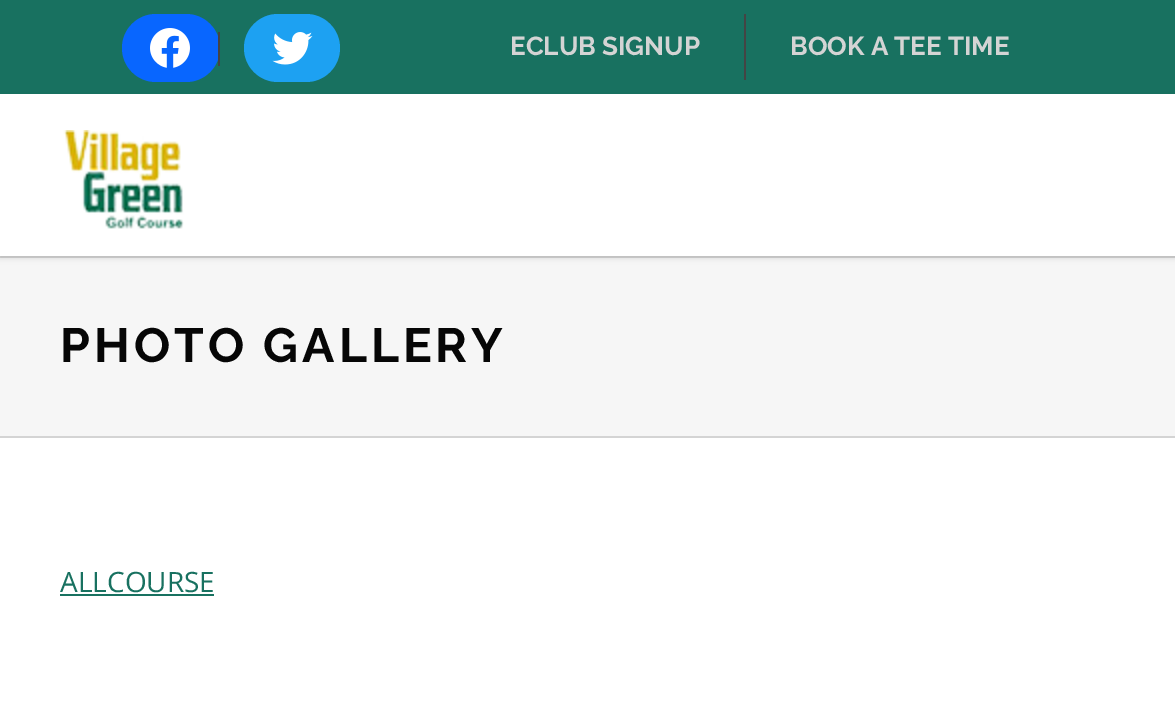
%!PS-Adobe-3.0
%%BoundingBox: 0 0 1175 707
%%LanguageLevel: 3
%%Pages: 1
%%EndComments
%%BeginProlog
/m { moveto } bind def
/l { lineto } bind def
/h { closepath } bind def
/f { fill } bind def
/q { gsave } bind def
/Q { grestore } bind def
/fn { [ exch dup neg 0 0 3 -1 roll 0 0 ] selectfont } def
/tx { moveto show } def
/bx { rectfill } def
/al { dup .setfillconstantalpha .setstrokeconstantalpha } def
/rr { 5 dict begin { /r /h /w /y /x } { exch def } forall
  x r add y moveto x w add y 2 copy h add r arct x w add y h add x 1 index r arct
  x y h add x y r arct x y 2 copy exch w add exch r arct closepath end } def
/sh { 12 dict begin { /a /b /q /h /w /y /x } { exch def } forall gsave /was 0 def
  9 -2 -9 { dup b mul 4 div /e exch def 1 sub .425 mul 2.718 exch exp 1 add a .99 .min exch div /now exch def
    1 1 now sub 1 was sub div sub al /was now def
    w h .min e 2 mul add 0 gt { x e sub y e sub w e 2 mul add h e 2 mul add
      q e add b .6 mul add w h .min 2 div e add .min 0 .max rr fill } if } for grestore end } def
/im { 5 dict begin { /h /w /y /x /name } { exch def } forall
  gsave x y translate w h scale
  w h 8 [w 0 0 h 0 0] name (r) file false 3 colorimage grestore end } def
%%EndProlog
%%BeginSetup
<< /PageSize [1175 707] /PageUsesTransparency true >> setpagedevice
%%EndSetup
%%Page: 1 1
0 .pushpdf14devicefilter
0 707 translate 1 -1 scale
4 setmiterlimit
1 setgray
0 0 1175 707 bx
0.094 0.443 0.376 setrgbcolor
0 0 1175 94 bx
0.031 0.4 1 setrgbcolor
122 14 98 68 34 rr f
0.267 setgray
218 32 2 34 bx
(image0.raw) 150 28 40 40 im
0.114 0.631 0.949 setrgbcolor
244 14 96 68 34 rr f
(image1.raw) 272 32 41 33 im
0.267 setgray
744 14 2 66 bx
/Raleway-Bold 26 fn
0.831 setgray
(ECLUB SIGNUP) 510 55 tx
(BOOK A TEE TIME) 790 55 tx
0.965 setgray
0 258 1175 178 bx
0.831 setgray
0 256 1175 2 bx
q
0 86 m 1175 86 l 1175 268 l 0 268 l h 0 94 m 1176 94 l 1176 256 l 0 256 l h eoclip newpath
0 setgray
0 96 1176 162 0 3 0.12 sh
Q
(image2.raw) 63 130 121 99 im
0 436 1175 2 bx
/Raleway-Bold 48 fn
0.024 setgray
60 362 m 4 0 (PHOTO GALLERY) ashow
/OpenSans-Regular 28 fn
0.094 0.443 0.376 setrgbcolor
(ALLCOURSE) 60 592 tx
60 594 154 2 bx
.poppdf14devicefilter showpage
%%EOF
